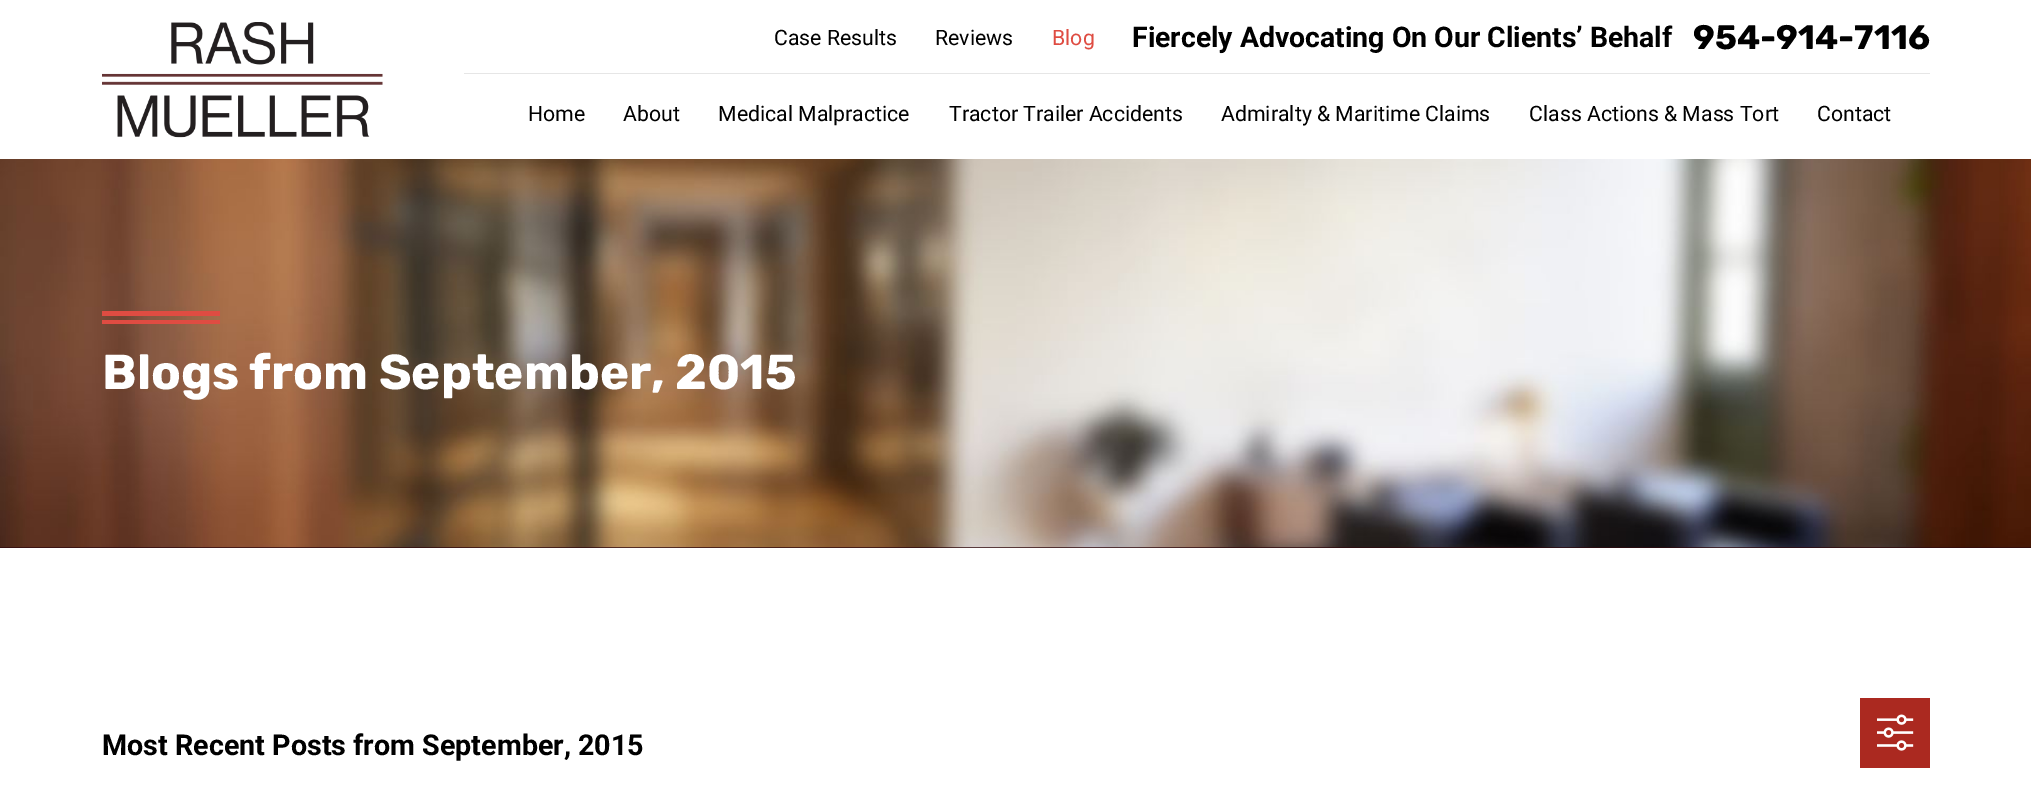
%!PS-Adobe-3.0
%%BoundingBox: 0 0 2031 794
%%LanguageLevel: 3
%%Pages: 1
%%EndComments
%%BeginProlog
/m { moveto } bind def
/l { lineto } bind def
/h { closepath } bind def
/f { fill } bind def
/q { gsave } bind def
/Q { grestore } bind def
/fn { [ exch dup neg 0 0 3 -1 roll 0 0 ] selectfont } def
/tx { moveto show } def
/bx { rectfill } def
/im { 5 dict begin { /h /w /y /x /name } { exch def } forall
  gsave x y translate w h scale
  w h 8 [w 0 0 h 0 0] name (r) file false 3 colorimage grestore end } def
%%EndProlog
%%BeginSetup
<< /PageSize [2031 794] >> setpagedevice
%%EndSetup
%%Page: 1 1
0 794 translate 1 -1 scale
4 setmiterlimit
1 setgray
0 0 2031 794 bx
(image0.raw) 102 22 281 116 im
0.902 setgray
464 73 1466 1 bx
/Roboto-Regular 21.25 fn
0 setgray
(Case Results) 774 45 tx
(Reviews) 935 45 tx
0.875 0.298 0.259 setrgbcolor
(Blog) 1052 45 tx
/Roboto-Bold 28.4 fn
0 setgray
(Fiercely Advocating On Our Clients’ Behalf) 1132 47 tx
/Rubik-Bold 34 fn
(954-914-7116) 1693 49 tx
/Roboto-Regular 21.25 fn
(Home) 528 121 tx
(About) 623 121 tx
(Medical Malpractice) 718 121 tx
(Tractor Trailer Accidents) 949 121 tx
(Admiralty & Maritime Claims) 1221 121 tx
(Class Actions & Mass Tort) 1529 121 tx
(Contact) 1817 121 tx
0.188 0.035 0.055 setrgbcolor
0 547 2031 1 bx
(image1.raw) 0 159 2031 389 im
q
101 309 119 17 rectclip
0.875 0.298 0.259 setrgbcolor
102 324 m 102 320 l 221 320 l 221 324 l h 102 311 m 221 311 l 221 316 l 102 316 l h f
Q
/Rubik-Bold 49.1 fn
1 setgray
(Blogs from September, 2015) 102 389 tx
/Roboto-Bold 28.7 fn
0 setgray
(Most Recent Posts from September, 2015) 102 755 tx
0.671 0.161 0.125 setrgbcolor
1860 698 70 70 bx
(image2.raw) 1877 714 37 37 im
showpage
%%EOF
